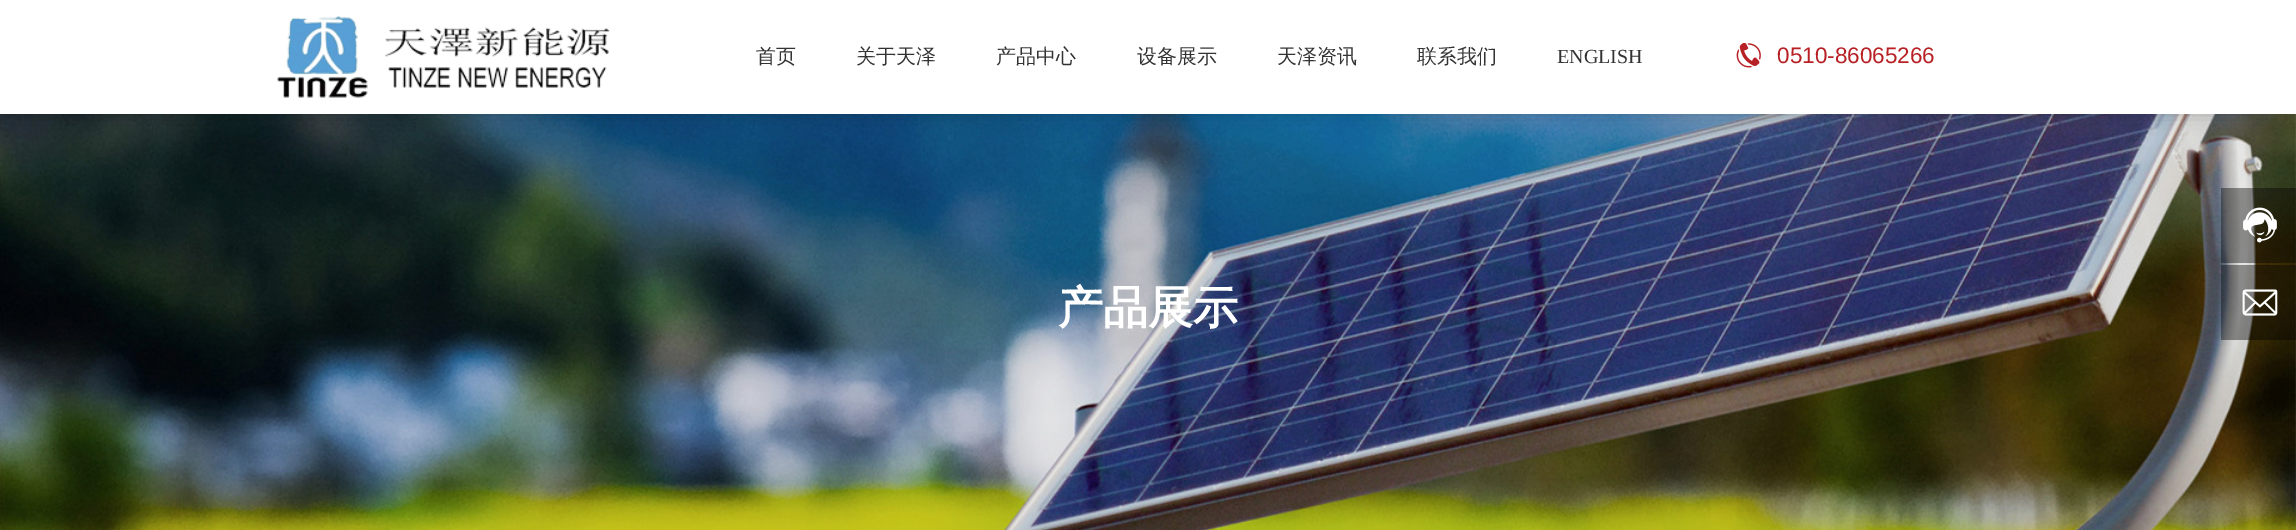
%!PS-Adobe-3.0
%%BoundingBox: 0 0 2296 530
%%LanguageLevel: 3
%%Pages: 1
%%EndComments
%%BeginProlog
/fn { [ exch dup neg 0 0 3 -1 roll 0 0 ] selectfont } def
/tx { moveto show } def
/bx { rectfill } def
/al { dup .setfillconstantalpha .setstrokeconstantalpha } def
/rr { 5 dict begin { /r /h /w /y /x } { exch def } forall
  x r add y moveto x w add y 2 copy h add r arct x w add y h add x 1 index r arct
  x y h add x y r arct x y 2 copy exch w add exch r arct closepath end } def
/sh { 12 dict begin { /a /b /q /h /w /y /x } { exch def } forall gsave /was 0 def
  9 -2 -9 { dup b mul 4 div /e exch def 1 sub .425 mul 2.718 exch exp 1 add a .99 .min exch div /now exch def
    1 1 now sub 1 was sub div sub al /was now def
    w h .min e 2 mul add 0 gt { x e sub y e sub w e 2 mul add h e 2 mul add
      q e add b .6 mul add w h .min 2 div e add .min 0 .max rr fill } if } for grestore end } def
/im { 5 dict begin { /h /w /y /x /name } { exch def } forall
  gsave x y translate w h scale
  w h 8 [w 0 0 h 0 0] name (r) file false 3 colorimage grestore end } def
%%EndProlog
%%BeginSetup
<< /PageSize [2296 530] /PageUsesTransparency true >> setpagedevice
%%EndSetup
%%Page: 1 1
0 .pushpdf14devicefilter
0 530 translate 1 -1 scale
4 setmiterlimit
1 setgray
0 0 2296 530 bx
(image2.raw) 0 114 2296 416 im
0 setgray
0 0 2296 114 0 9.5 0.2 sh
1 setgray
0 0 2296 114 bx
(image0.raw) 277 16 333 82 im
/WenQuanYiZenHei-Medium 20 fn
0.2 setgray
(首页) 756 63 tx
(关于天泽) 856 63 tx
(产品中心) 996 63 tx
(设备展示) 1137 63 tx
(天泽资讯) 1277 63 tx
(联系我们) 1417 63 tx
/LiberationSerif-Regular 20 fn
(ENGLISH) 1557 63 tx
(image1.raw) 1736 43 25 25 im
/LiberationSans-Regular 22.5 fn
0.718 0.125 0.141 setrgbcolor
(0510-86065266) 1777 63 tx
/WenQuanYiZenHei-Bold 45 fn
1 setgray
(产品展示) 1058 323 tx
0.4 al
0 setgray
2221 188 75 75 bx
1 al
(image3.raw) 2243 207 34 36 im
0.4 al
2221 265 75 75 bx
1 al
(image4.raw) 2242 289 36 27 im
.poppdf14devicefilter showpage
%%EOF
